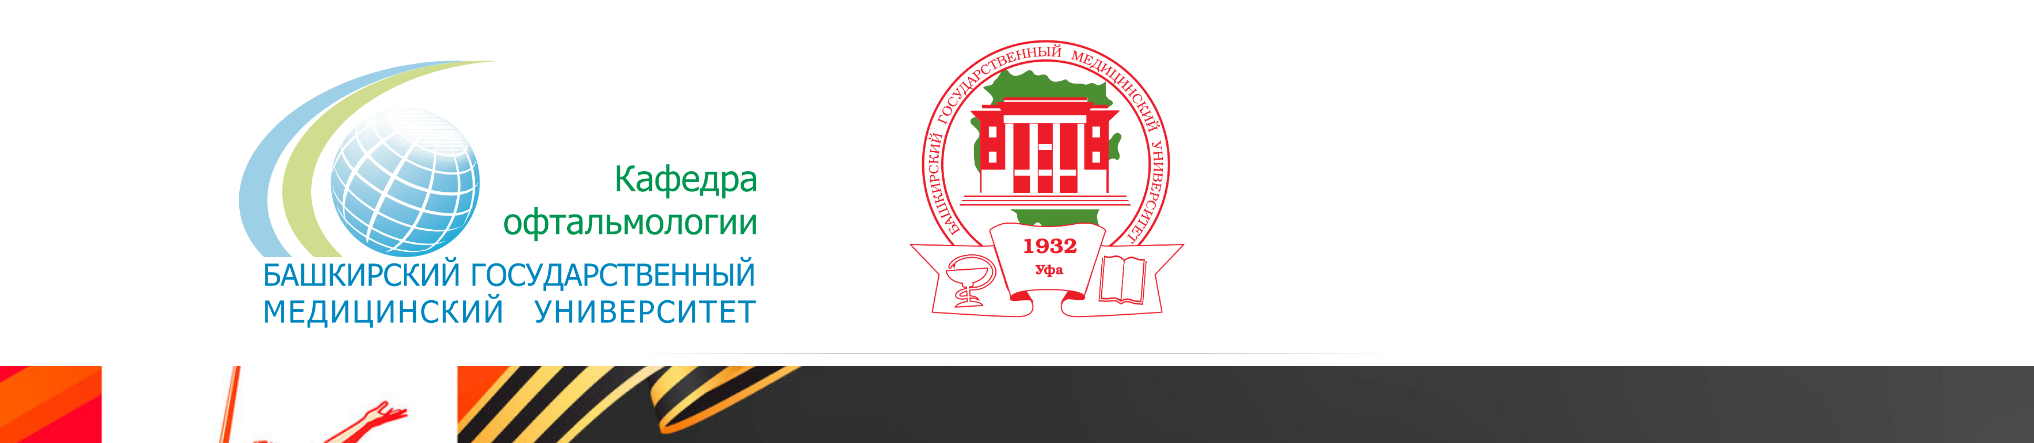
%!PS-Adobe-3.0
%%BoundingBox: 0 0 2034 443
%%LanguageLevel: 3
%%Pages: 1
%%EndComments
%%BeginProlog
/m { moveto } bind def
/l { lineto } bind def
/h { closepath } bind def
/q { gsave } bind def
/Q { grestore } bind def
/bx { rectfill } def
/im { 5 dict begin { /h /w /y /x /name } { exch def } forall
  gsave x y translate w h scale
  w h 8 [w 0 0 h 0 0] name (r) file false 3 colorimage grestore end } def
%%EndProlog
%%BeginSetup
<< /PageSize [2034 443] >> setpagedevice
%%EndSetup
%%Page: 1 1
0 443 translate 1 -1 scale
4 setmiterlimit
1 setgray
0 0 2034 443 bx
(image0.raw) 239 60 518 268 im
(image1.raw) 909 40 276 278 im
q 647 353 m 837 353 l 837 354 l 647 354 l h clip newpath
<< /ShadingType 2 /ColorSpace /DeviceRGB /Coords [837 354 637 354] /Extend [true true] /Function << /FunctionType 2 /Domain [0 1] /C0 [0.8 0.8 0.8] /C1 [1 1 1] /N 1 >> >> shfill Q
0.8 setgray
837 353 360 1 bx
q 1197 353 m 1387 353 l 1387 354 l 1197 354 l h clip newpath
<< /ShadingType 2 /ColorSpace /DeviceRGB /Coords [1197 354 1397 354] /Extend [true true] /Function << /FunctionType 2 /Domain [0 1] /C0 [0.8 0.8 0.8] /C1 [1 1 1] /N 1 >> >> shfill Q
(image2.raw) 0 366 2034 77 im
showpage
%%EOF
